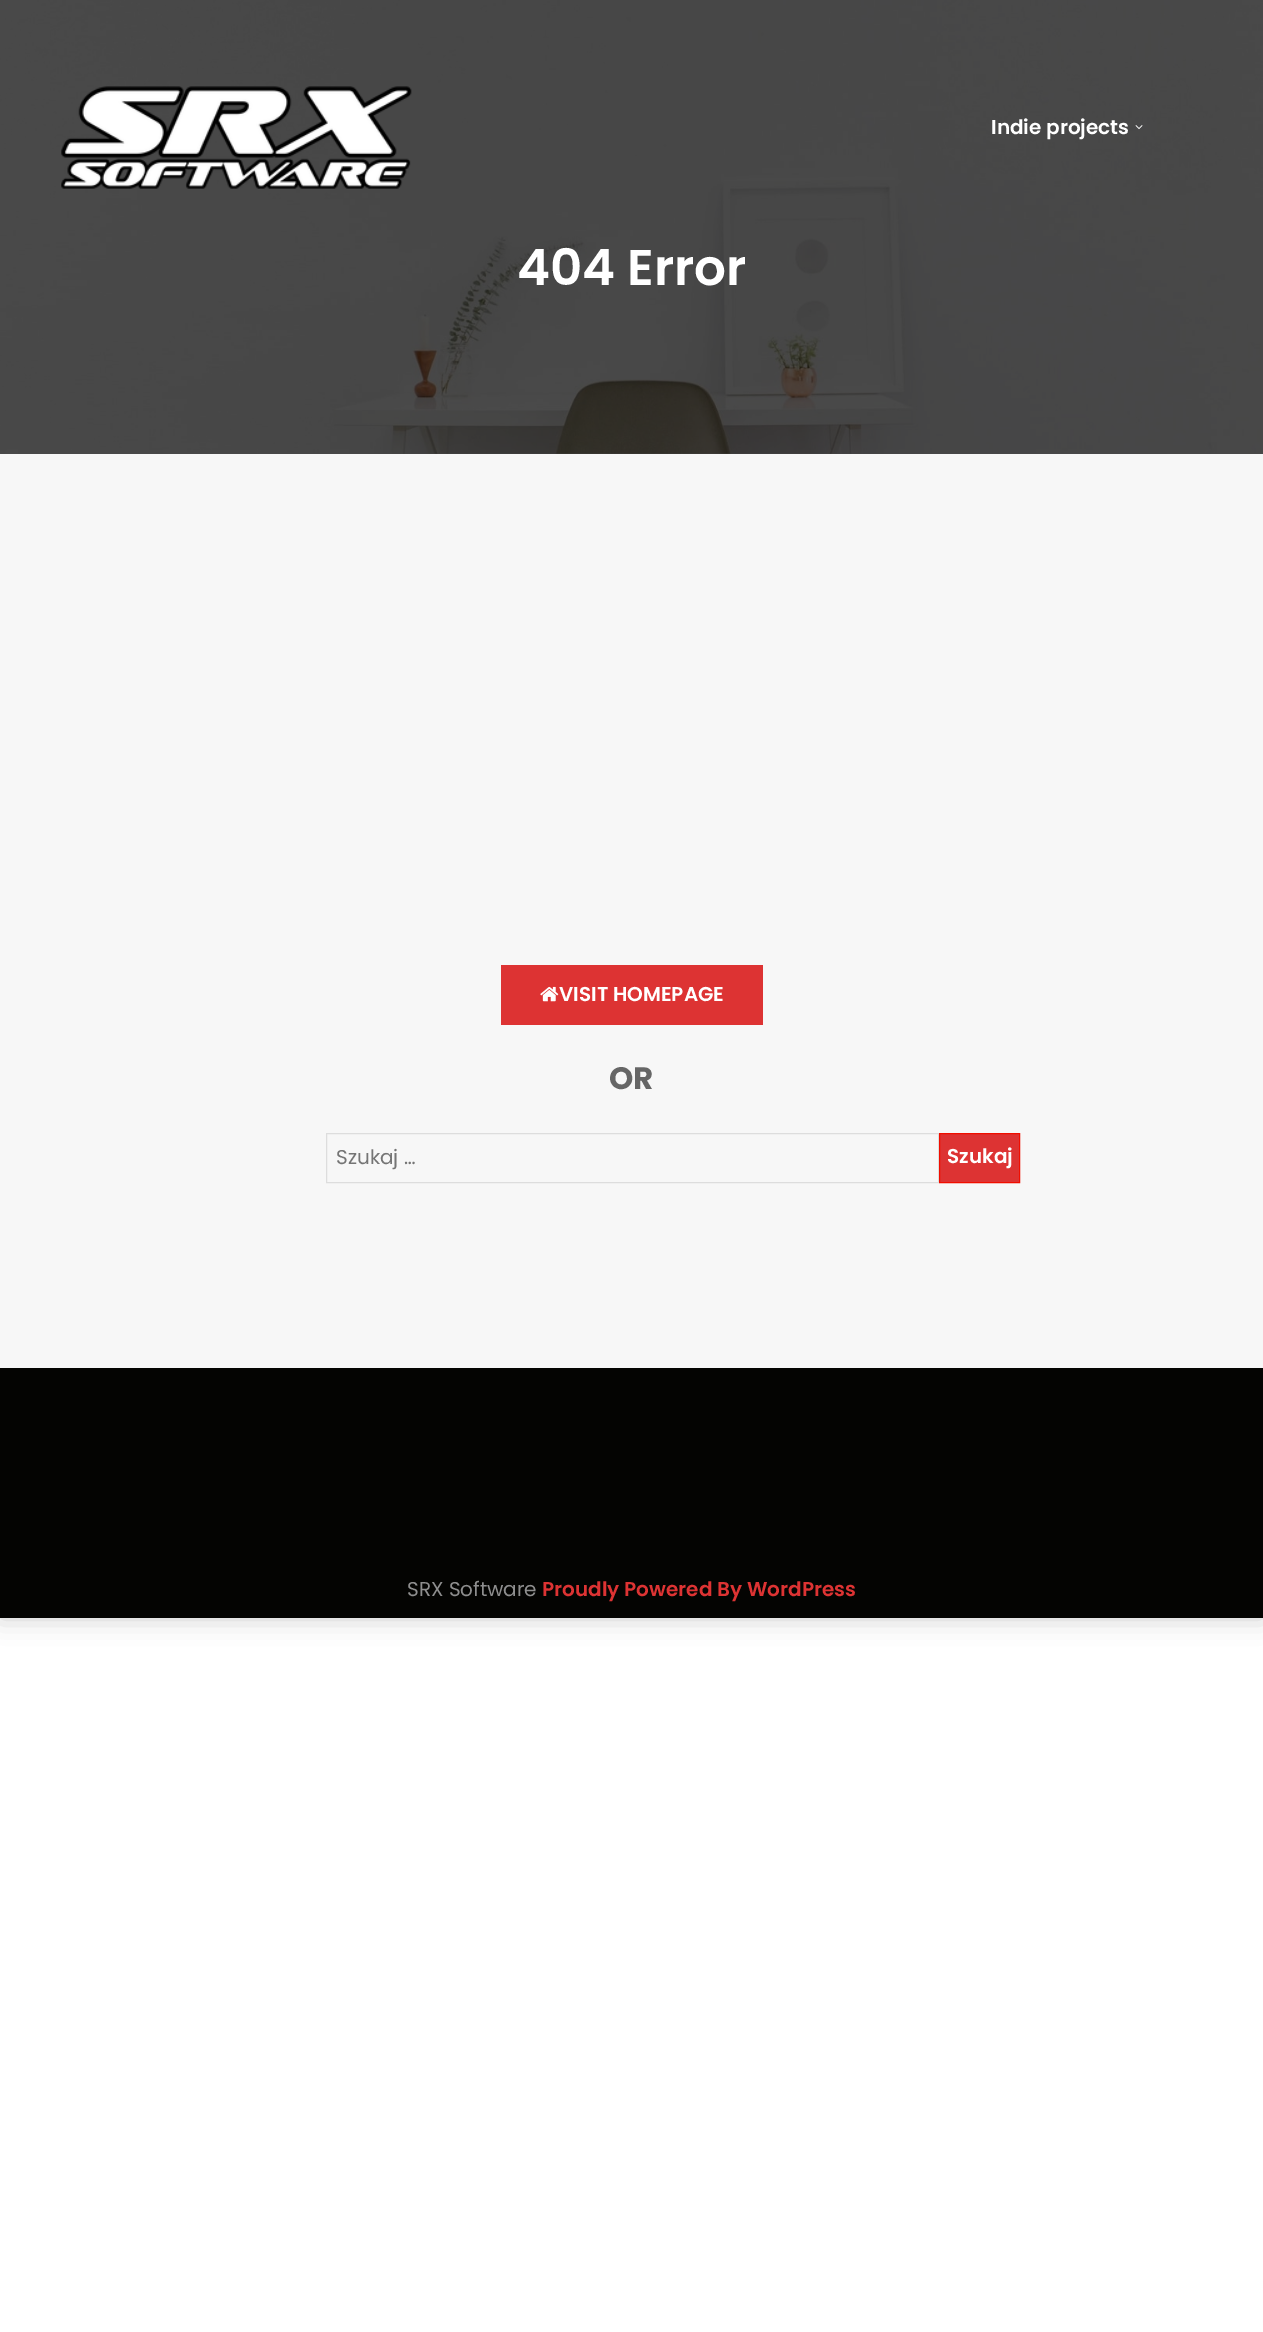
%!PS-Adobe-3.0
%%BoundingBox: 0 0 1263 2332
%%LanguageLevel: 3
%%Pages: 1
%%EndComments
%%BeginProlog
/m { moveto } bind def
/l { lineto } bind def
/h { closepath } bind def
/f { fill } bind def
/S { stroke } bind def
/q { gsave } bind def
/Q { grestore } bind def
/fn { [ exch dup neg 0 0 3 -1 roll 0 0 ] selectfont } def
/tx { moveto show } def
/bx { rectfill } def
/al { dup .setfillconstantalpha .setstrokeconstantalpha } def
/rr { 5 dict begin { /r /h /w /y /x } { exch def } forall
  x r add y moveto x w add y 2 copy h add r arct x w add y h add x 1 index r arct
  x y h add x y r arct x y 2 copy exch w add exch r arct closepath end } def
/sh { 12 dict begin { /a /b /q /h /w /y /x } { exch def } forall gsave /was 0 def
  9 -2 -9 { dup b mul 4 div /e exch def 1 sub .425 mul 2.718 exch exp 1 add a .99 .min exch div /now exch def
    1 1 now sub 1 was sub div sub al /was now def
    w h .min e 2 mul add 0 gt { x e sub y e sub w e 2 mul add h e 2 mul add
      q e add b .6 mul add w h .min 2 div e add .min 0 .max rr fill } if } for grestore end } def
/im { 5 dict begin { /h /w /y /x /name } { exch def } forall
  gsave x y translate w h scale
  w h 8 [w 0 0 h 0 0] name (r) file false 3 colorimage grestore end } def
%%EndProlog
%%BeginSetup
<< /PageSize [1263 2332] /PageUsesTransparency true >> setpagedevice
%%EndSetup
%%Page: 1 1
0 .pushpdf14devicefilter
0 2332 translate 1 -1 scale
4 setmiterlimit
1 setgray
0 0 1263 2332 bx
(image2.raw) 0 0 1263 454 im
(image0.raw) 61 86 351 103 im
/Poppins-SemiBold 20 fn
(Indie projects) 991 134 tx
(image1.raw) 1135 125 8 5 im
/Poppins-SemiBold 50 fn
(404 Error) 517 285 tx
0.969 setgray
0 454 1263 914 bx
0.867 0.2 0.2 setrgbcolor
501 965 262 60 bx
(image3.raw) 540 986 19 16 im
/Poppins-SemiBold 20 fn
1 setgray
(VISIT HOMEPAGE) 559 1001 tx
/Poppins-Bold 31 fn
0.4 setgray
(OR) 609 1089 tx
0.867 setgray
326.5 1133.5 612 49 rectstroke
/Poppins-Regular 20 fn
0.459 setgray
(Szukaj …) 336 1164 tx
0.867 0.2 0.2 setrgbcolor
939.5 1133.5 m 1019.5 1133.5 l 1019.5 1182.5 l 939.5 1182.5 l h q f Q
0.945 0.055 0 setrgbcolor
S
/Poppins-SemiBold 20 fn
1 setgray
(Szukaj) 947 1163 tx
0.016 0.016 0.008 setrgbcolor
0 1368 1263 250 bx
q
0 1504 m 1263 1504 l 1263 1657 l 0 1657 l h 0 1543 m 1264 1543 l 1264 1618 l 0 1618 l h eoclip newpath
0 setgray
0 1543 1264 75 0 12.5 0.2 sh
Q
/Poppins-Regular 20 fn
0.557 setgray
(SRX Software) 407 1596 tx
/Poppins-SemiBold 20 fn
0.867 0.2 0.2 setrgbcolor
(Proudly Powered By WordPress) 542 1596 tx
.poppdf14devicefilter showpage
%%EOF
